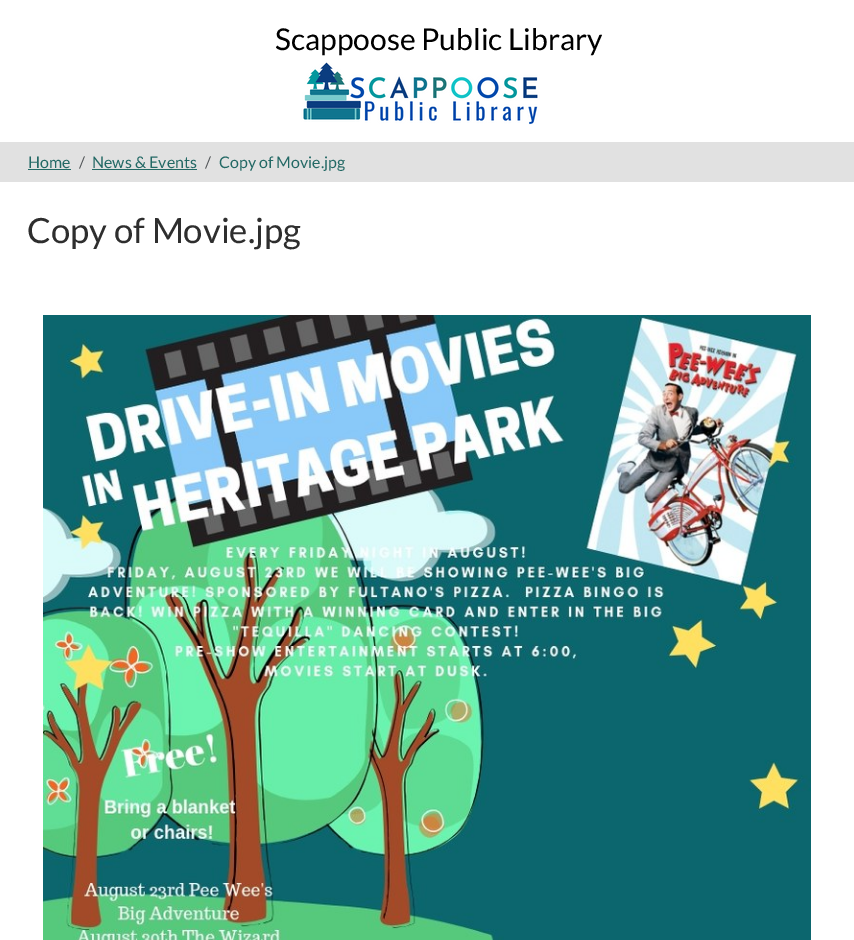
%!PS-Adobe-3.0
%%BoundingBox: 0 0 854 940
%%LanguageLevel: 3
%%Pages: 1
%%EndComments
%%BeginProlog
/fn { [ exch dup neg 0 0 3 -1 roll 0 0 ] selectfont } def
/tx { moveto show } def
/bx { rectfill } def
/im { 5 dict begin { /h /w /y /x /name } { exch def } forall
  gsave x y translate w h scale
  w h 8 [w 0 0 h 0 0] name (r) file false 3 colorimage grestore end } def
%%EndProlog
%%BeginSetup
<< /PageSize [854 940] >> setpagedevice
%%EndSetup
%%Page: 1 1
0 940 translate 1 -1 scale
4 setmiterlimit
1 setgray
0 0 854 940 bx
/Lato-Regular 30 fn
0 setgray
(Scappoose Public Library) 275 50 tx
(image0.raw) 301 62 239 63 im
0.882 setgray
0 142 854 40 bx
/Lato-Regular 16 fn
0.137 0.412 0.396 setrgbcolor
(Home) 28 168 tx
28 169 43 1 bx
0.318 0.329 0.341 setrgbcolor
(/) 79 168 tx
0.137 0.412 0.396 setrgbcolor
(News & Events) 92 168 tx
92 169 105 1 bx
0.318 0.329 0.341 setrgbcolor
(/) 205 168 tx
0.137 0.412 0.396 setrgbcolor
(Copy of Movie.jpg) 219 168 tx
/Lato-Regular 34.75 fn
0.18 setgray
(Copy of Movie.jpg) 27 243 tx
(image1.raw) 43 315 768 625 im
showpage
%%EOF
